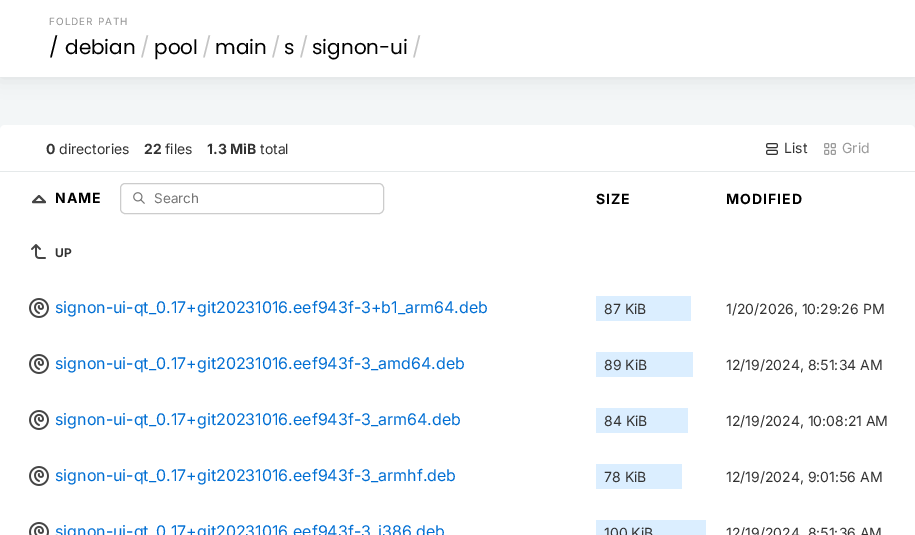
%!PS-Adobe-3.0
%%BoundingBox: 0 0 915 535
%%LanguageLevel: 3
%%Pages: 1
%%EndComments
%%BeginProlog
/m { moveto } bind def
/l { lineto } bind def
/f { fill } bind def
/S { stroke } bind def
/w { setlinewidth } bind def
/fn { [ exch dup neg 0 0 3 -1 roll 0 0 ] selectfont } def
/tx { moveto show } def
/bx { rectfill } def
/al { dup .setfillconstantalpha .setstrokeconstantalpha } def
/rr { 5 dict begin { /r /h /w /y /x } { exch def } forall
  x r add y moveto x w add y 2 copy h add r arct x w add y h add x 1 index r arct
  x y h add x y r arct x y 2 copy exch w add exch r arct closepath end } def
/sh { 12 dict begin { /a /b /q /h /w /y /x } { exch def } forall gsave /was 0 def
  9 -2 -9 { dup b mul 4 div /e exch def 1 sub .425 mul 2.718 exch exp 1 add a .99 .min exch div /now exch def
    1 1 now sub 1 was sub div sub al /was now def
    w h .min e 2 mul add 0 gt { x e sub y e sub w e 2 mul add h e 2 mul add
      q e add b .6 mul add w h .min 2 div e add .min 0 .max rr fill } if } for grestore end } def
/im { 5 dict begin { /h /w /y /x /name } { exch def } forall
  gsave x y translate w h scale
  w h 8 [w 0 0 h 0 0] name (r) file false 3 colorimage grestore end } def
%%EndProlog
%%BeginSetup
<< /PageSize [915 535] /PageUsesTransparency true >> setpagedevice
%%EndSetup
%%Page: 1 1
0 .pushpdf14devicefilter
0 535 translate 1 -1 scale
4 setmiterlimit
0.953 0.965 0.969 setrgbcolor
0 0 915 535 bx
0 setgray
0 0 915 77 0 10 0.1 sh
1 setgray
0 0 915 77 bx
/Inter-Regular 10 fn
0.576 setgray
49 25 m 1 0 (FOLDER PATH) ashow
/Poppins-Regular 20 fn
0 setgray
(/) 49 54 tx
(debian) 65 54 tx
0.773 setgray
(/) 140 54 tx
0 setgray
(pool) 154 54 tx
0.773 setgray
(/) 202 54 tx
0 setgray
(main) 215 54 tx
0.773 setgray
(/) 271 54 tx
0 setgray
(s) 284 54 tx
0.773 setgray
(/) 299 54 tx
0 setgray
(signon-ui) 312 54 tx
0.773 setgray
(/) 412 54 tx
1 setgray
0 125 915 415 5 rr f
0.898 0.914 0.918 setrgbcolor
0 171 915 1 bx
/Inter-Bold 14 fn
0.2 setgray
(0) 46 154 tx
/Inter-Regular 14 fn
(directories) 59 154 tx
/Inter-Bold 14 fn
(22) 144 154 tx
/Inter-Regular 14 fn
(files) 165 154 tx
/Inter-Bold 14 fn
(1.3 MiB) 207 154 tx
/Inter-Regular 14 fn
(total) 260 154 tx
(image0.raw) 766 143 12 12 im
(List) 784 153 tx
(image1.raw) 824 143 12 12 im
0.604 setgray
(Grid) 842 153 tx
0.271 setgray
2 w
1 setlinecap
1 setlinejoin
45 202 m 39 196 l 33 202 l 45 202 l S
/Inter-Bold 14 fn
0 setgray
55 203 m 1 0 (NAME) ashow
(image2.raw) 133 192 12 12 im
0.8 setgray
1 w
0 setlinecap
0 setlinejoin
120.5 183.5 263 30 4.5 rr S
/Inter-Regular 13.5 fn
0.459 setgray
(Search) 154 203 tx
/Inter-Bold 14 fn
0 setgray
596 204 m 1 0 (SIZE) ashow
726 204 m 1 0 (MODIFIED) ashow
(image3.raw) 31 244 15 15 im
/Inter-Bold 12 fn
0.2 setgray
(UP) 55 257 tx
(image4.raw) 29 298 20 20 im
/Inter-Regular 16 fn
0 0.431 0.827 setrgbcolor
(signon-ui-qt_0.17+git20231016.eef943f-3+b1_arm64.deb) 55 313 tx
0.859 0.933 1 setrgbcolor
596 296 95 25 bx
/Inter-Regular 14 fn
0.2 setgray
(87 KiB) 604 314 tx
(1/20/2026, 10:29:26 PM) 726 314 tx
(image4.raw) 29 354 20 20 im
/Inter-Regular 16 fn
0 0.431 0.827 setrgbcolor
(signon-ui-qt_0.17+git20231016.eef943f-3_amd64.deb) 55 369 tx
0.859 0.933 1 setrgbcolor
596 352 97 25 bx
/Inter-Regular 14 fn
0.2 setgray
(89 KiB) 604 370 tx
(12/19/2024, 8:51:34 AM) 726 370 tx
(image4.raw) 29 410 20 20 im
/Inter-Regular 16 fn
0 0.431 0.827 setrgbcolor
(signon-ui-qt_0.17+git20231016.eef943f-3_arm64.deb) 55 425 tx
0.859 0.933 1 setrgbcolor
596 408 92 25 bx
/Inter-Regular 14 fn
0.2 setgray
(84 KiB) 604 426 tx
(12/19/2024, 10:08:21 AM) 726 426 tx
(image4.raw) 29 466 20 20 im
/Inter-Regular 16 fn
0 0.431 0.827 setrgbcolor
(signon-ui-qt_0.17+git20231016.eef943f-3_armhf.deb) 55 481 tx
0.859 0.933 1 setrgbcolor
596 464 86 25 bx
/Inter-Regular 14 fn
0.2 setgray
(78 KiB) 604 482 tx
(12/19/2024, 9:01:56 AM) 726 482 tx
(image5.raw) 29 522 20 13 im
/Inter-Regular 16 fn
0 0.431 0.827 setrgbcolor
(signon-ui-qt_0.17+git20231016.eef943f-3_i386.deb) 55 537 tx
0.859 0.933 1 setrgbcolor
596 520 110 15 bx
/Inter-Regular 14 fn
0.2 setgray
(100 KiB) 604 538 tx
(12/19/2024, 8:51:36 AM) 726 538 tx
.poppdf14devicefilter showpage
%%EOF
